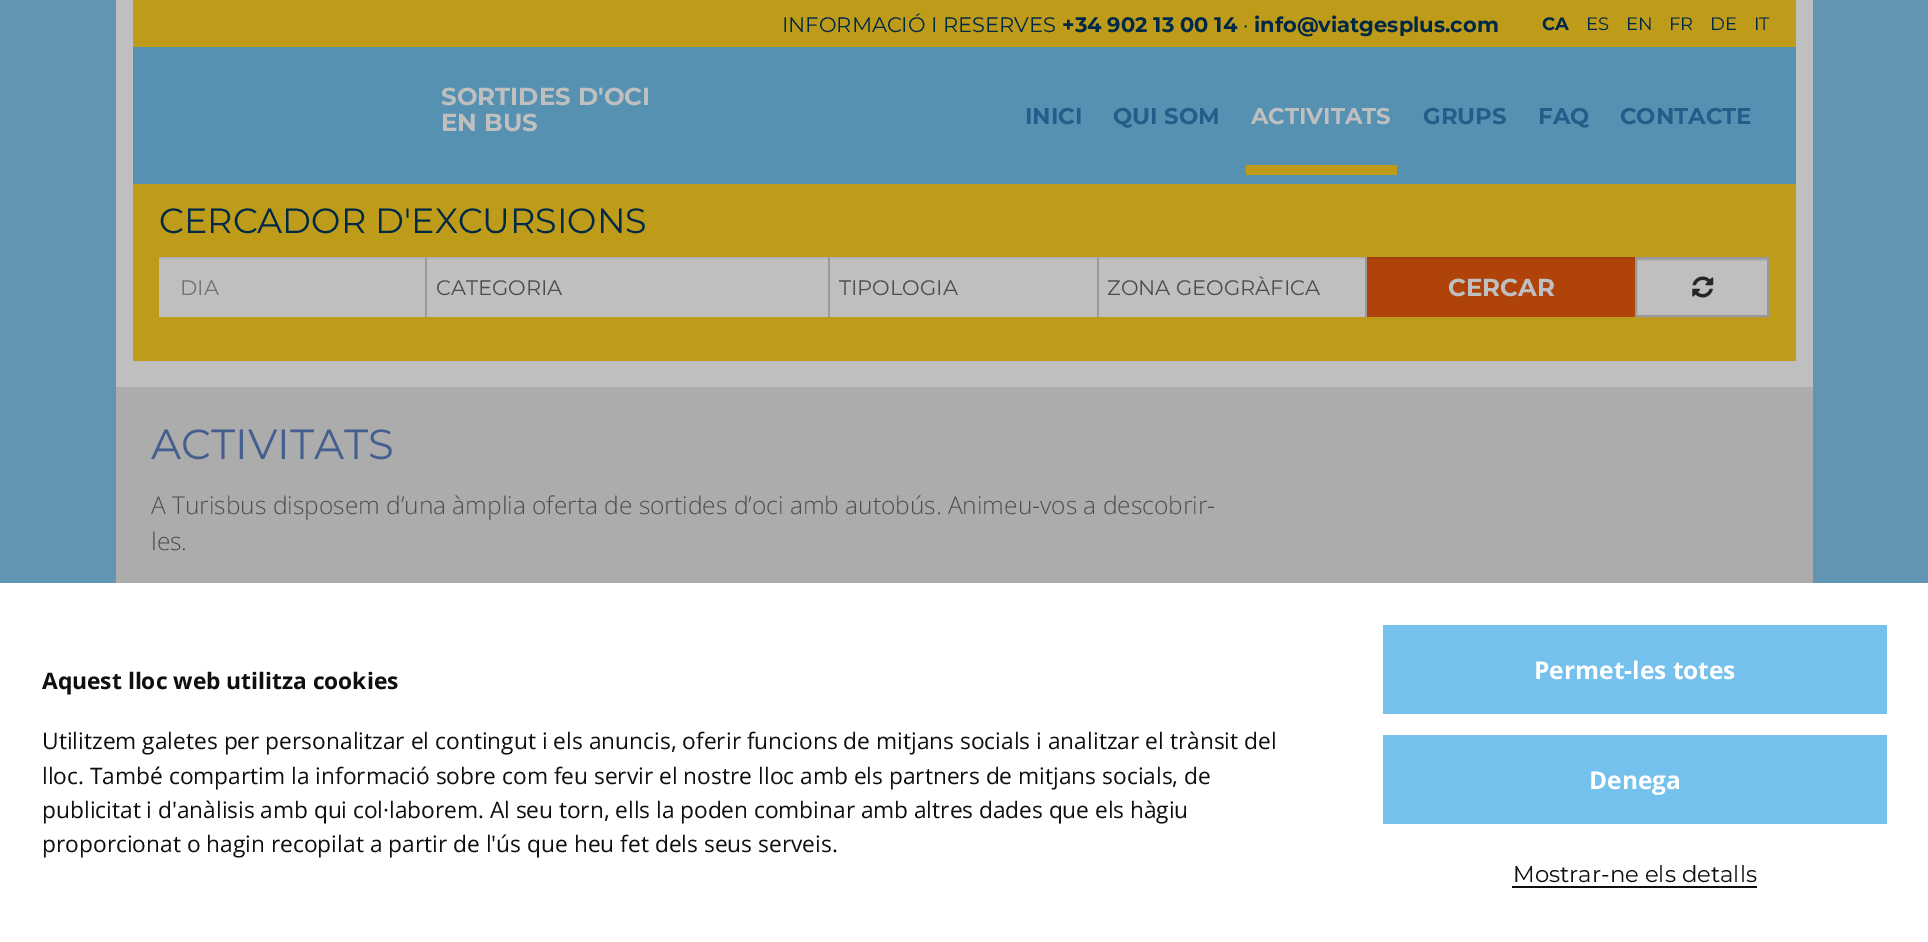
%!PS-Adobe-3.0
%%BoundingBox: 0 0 1928 942
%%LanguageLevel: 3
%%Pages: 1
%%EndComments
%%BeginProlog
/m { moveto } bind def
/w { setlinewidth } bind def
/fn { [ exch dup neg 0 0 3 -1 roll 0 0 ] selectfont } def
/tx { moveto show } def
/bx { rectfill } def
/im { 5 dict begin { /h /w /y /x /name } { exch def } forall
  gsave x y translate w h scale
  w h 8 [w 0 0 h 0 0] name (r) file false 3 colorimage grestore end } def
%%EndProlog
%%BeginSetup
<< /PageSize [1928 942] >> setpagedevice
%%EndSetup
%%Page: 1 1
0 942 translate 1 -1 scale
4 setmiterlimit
0.38 0.584 0.702 setrgbcolor
0 0 1928 942 bx
0.749 setgray
116 0 1697 184 bx
0.749 0.608 0.102 setrgbcolor
133 0 1663 47 bx
/Montserrat-Regular 21 fn
0 0.161 0.278 setrgbcolor
(INFORMACIÓ I RESERVES) 782 32 tx
/Montserrat-Bold 21 fn
(+34 902 13 00 14) 1062 32 tx
/Montserrat-Regular 21 fn
(·) 1243 32 tx
/Montserrat-Bold 21 fn
(info@viatgesplus.com) 1254 32 tx
/Montserrat-Bold 18 fn
(CA) 1542 30 tx
/Montserrat-Regular 18 fn
(ES) 1586 30 tx
(EN) 1626 30 tx
(FR) 1669 30 tx
(DE) 1710 30 tx
(IT) 1754 30 tx
0.337 0.569 0.694 setrgbcolor
133 47 1663 137 bx
/Montserrat-Bold 24.5 fn
0.749 setgray
(SORTIDES D'OCI) 441 105 tx
(EN BUS) 441 131 tx
/Montserrat-Bold 22.75 fn
0.149 0.361 0.537 setrgbcolor
(INICI) 1025 124 tx
(QUI SOM) 1113 124 tx
0.749 0.608 0.102 setrgbcolor
1246 165 151 10 bx
0.749 setgray
(ACTIVITATS) 1251 124 tx
0.149 0.361 0.537 setrgbcolor
(GRUPS) 1423 124 tx
(FAQ) 1538 124 tx
(CONTACTE) 1620 124 tx
0.749 0.608 0.102 setrgbcolor
133 184 1663 177 bx
0.749 setgray
1796 184 17 177 bx
116 184 17 177 bx
/Montserrat-Regular 35 fn
0 0.161 0.278 setrgbcolor
(CERCADOR D'EXCURSIONS) 159 233 tx
0.749 setgray
159 259 266 58 bx
0.694 setgray
159 257 266 2 bx
0.6 setgray
425 257 2 60 bx
/Montserrat-Regular 21 fn
0.451 setgray
(DIA) 180 295 tx
0.749 setgray
427 259 401 58 bx
0.694 setgray
427 257 401 2 bx
0.6 setgray
828 257 2 60 bx
0.302 setgray
(CATEGORIA) 436 295 tx
0.749 setgray
830 259 267 58 bx
0.694 setgray
830 257 267 2 bx
0.6 setgray
1097 257 2 60 bx
0.302 setgray
(TIPOLOGIA) 839 295 tx
0.749 setgray
1099 259 266 58 bx
0.694 setgray
1099 257 266 2 bx
0.6 setgray
1365 257 2 60 bx
0.302 setgray
(ZONA GEOGRÀFICA) 1107 295 tx
0.686 0.263 0.039 setrgbcolor
1367 259 268 58 bx
0.635 0.243 0.035 setrgbcolor
1367 257 268 2 bx
/Montserrat-Bold 24.5 fn
0.749 setgray
(CERCAR) 1448 296 tx
1637 261 130 54 bx
0.694 setgray
1636 259 132 2 bx
0.6 setgray
2 w
1636 258 132 58 rectstroke
(image0.raw) 1692 276 22 22 im
0.749 setgray
116 361 1697 26 bx
0.675 setgray
116 387 1697 196 bx
/Montserrat-Regular 42 fn
0.267 0.373 0.561 setrgbcolor
(ACTIVITATS) 151 459 tx
/OpenSans-Light 24.5 fn
0.302 setgray
(A Turisbus disposem d’una àmplia oferta de sortides d’oci amb autobús. Animeu-vos a descobrir-) 151 514 tx
(les.) 151 550 tx
1 setgray
0 583 1928 359 bx
/OpenSans-Bold 22.75 fn
0.059 setgray
(Aquest lloc web utilitza cookies) 42 689 tx
/OpenSans-Regular 22.75 fn
(Utilitzem galetes per personalitzar el contingut i els anuncis, oferir funcions de mitjans socials i analitzar el trànsit del) 42 749 tx
(lloc. També compartim la informació sobre com feu servir el nostre lloc amb els partners de mitjans socials, de) 42 784 tx
42 818 m -0.3 0 32 (publicitat i d'anàlisis amb qui col·laborem. Al seu torn, ells la poden combinar amb altres dades que els hàgiu) widthshow
(proporcionat o hagin recopilat a partir de l'ús que heu fet dels seus serveis.) 42 852 tx
0.451 0.757 0.925 setrgbcolor
1383 625 504 89 bx
/OpenSans-Bold 24.5 fn
1 setgray
(Permet-les totes) 1534 679 tx
0.451 0.757 0.925 setrgbcolor
1383 735 504 89 bx
1 setgray
(Denega) 1589 789 tx
/Montserrat-Regular 22.75 fn
0.059 setgray
(Mostrar-ne els detalls) 1513 882 tx
1512 886 245 2 bx
showpage
%%EOF
